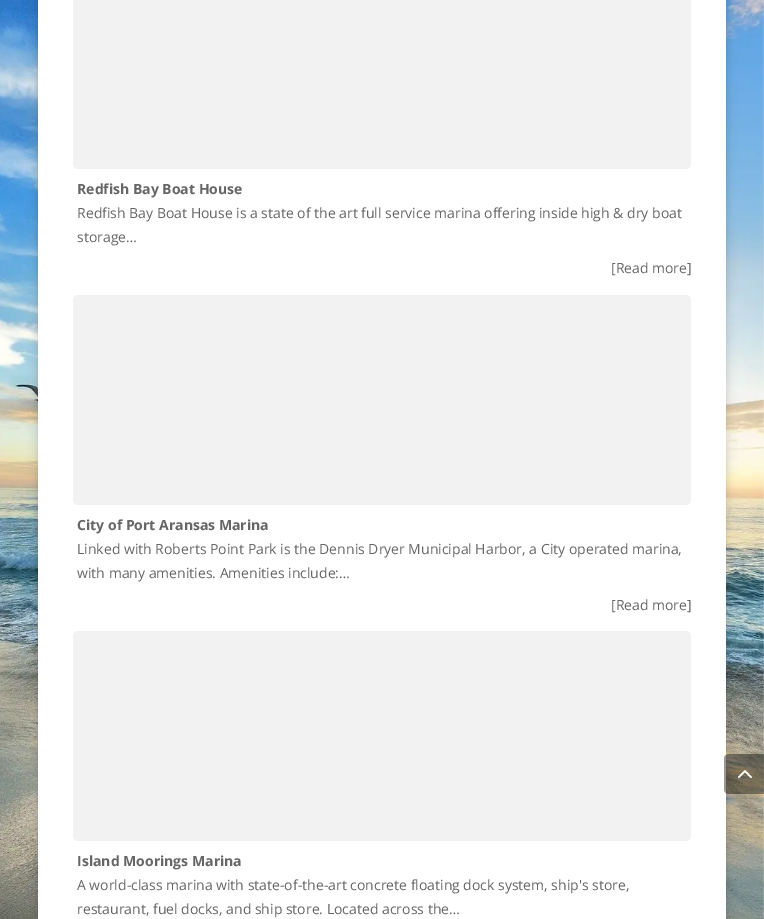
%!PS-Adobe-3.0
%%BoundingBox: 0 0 764 919
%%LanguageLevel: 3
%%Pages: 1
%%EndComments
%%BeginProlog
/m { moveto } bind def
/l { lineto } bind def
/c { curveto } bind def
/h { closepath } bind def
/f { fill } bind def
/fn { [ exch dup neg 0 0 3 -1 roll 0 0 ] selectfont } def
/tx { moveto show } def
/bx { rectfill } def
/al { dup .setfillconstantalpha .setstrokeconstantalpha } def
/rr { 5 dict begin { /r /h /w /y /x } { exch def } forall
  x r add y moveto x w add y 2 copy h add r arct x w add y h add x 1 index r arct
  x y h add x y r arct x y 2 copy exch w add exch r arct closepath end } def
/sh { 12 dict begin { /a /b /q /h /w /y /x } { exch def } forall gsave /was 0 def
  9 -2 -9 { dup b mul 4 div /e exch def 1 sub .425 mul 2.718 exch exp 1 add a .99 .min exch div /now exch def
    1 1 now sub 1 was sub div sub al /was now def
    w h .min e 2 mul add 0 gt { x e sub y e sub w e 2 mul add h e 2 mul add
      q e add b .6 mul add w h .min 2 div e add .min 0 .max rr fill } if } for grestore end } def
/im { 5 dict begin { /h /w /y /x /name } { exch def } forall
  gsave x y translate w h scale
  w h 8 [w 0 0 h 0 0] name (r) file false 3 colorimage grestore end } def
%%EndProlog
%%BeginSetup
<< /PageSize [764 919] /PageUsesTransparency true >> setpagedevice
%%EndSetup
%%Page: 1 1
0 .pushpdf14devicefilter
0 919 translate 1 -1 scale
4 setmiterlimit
1 setgray
0 0 764 919 bx
(image0.raw) 0 0 764 919 im
0 setgray
38 -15 688 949 0 5 0.2 sh
1 setgray
38 0 688 919 bx
0.949 setgray
73 -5 618 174 5 rr f
/OpenSans-Bold 14 fn
0.4 setgray
(Redfish Bay Boat House) 77 194 tx
/OpenSans-Regular 14 fn
(Redfish Bay Boat House is a state of the art full service marina offering inside high & dry boat) 77 218 tx
(storage…) 77 242 tx
([Read more]) 611 273 tx
0.949 setgray
73 295 618 210 5 rr f
/OpenSans-Bold 14 fn
0.4 setgray
(City of Port Aransas Marina) 77 530 tx
/OpenSans-Regular 14 fn
(Linked with Roberts Point Park is the Dennis Dryer Municipal Harbor, a City operated marina,) 77 554 tx
(with many amenities. Amenities include:…) 77 578 tx
([Read more]) 611 610 tx
0.949 setgray
73 631 618 210 5 rr f
/OpenSans-Bold 14 fn
0.4 setgray
(Island Moorings Marina) 77 866 tx
/OpenSans-Regular 14 fn
(A world-class marina with state-of-the-art concrete floating dock system, ship's store,) 77 890 tx
(restaurant, fuel docks, and ship store. Located across the…) 77 914 tx
0.4 al
0 setgray
729 754 m 764 754 l 764 794 l 729 794 l 726 794 724 792 724 789 c 724 759 l 724 756 726 754 729 754 c h f
1 al
(image1.raw) 737 770 15 9 im
.poppdf14devicefilter showpage
%%EOF
